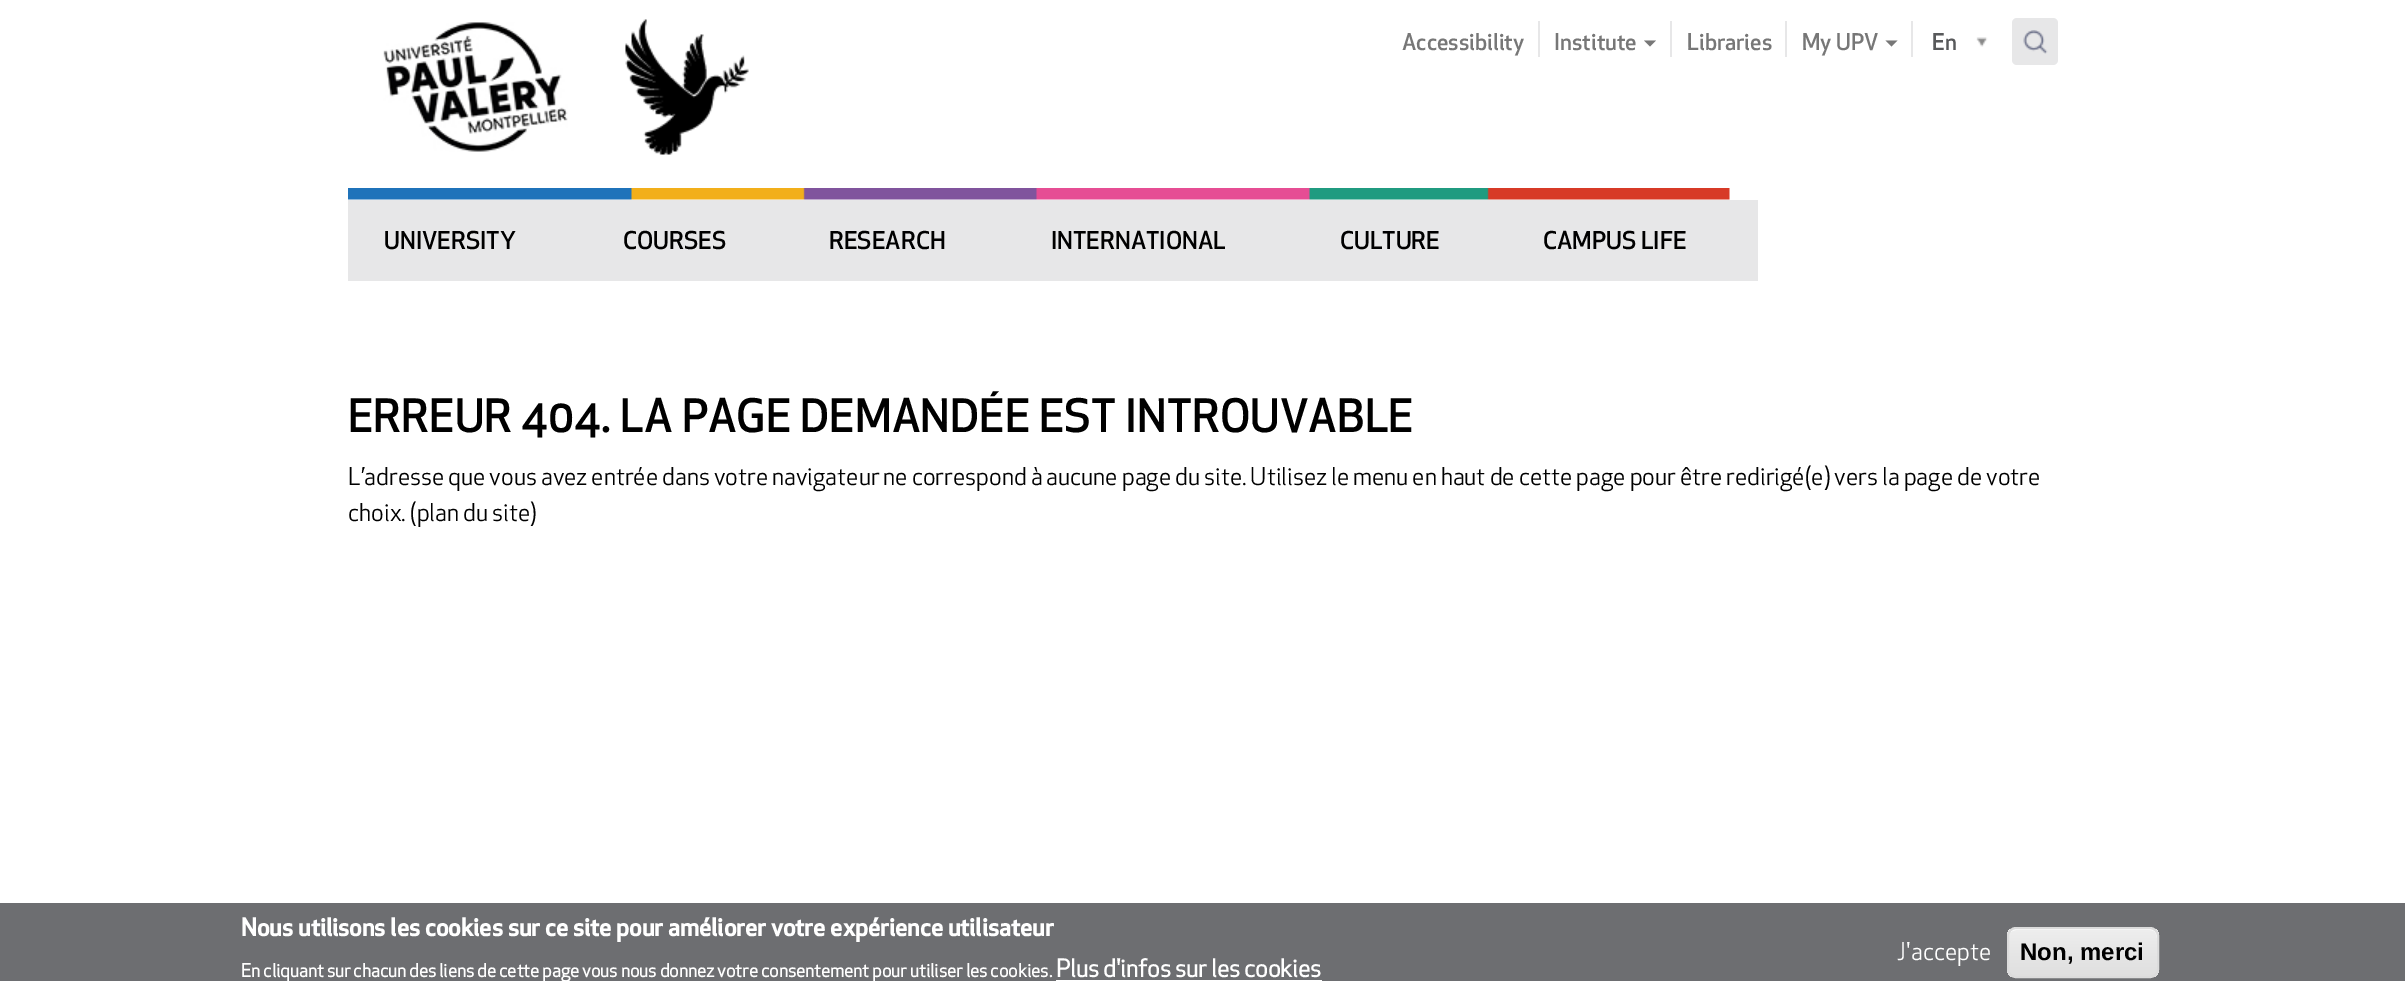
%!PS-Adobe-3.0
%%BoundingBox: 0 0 2405 981
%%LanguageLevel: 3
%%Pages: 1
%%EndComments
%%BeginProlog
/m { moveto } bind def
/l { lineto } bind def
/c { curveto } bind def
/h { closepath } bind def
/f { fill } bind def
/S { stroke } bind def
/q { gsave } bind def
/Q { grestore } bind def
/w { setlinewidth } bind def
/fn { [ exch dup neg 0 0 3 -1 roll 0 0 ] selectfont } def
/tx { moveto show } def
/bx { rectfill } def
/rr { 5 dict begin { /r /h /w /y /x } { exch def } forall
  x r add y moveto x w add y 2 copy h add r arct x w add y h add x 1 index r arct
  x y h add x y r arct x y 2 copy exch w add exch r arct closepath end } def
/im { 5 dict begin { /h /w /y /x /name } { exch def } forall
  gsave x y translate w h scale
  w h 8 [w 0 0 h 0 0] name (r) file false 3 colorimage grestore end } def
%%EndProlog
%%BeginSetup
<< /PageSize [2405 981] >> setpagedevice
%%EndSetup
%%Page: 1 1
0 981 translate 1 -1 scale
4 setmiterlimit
1 setgray
0 0 2405 981 bx
(image0.raw) 383 22 185 130 im
(image1.raw) 625 19 124 136 im
/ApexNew-Medium 22.5 fn
0.467 setgray
(Accessibility) 1402 50 tx
0.906 0.906 0.91 setrgbcolor
1538 21 2 36 bx
0.467 setgray
(Institute) 1554 50 tx
1644 40.5 m 1656 40.5 l 1650 46.5 l h f
0.906 0.906 0.91 setrgbcolor
1670 21 2 36 bx
0.467 setgray
(Libraries) 1687 50 tx
0.906 0.906 0.91 setrgbcolor
1785 21 2 36 bx
0.467 setgray
(My UPV) 1802 50 tx
1885.5 40.5 m 1897.5 40.5 l 1891.5 46.5 l h f
0.906 0.906 0.91 setrgbcolor
1911 21 2 36 bx
0.345 0.349 0.357 setrgbcolor
(En) 1932 50 tx
(image2.raw) 1976 37 12 10 im
0.906 0.906 0.91 setrgbcolor
2012 18 46 47 5 rr f
(image3.raw) 2023 30 25 24 im
(image4.raw) 348 188 1382 12 im
348 200 1410 81 bx
/ApexNew-Medium 24 fn
0 setgray
(UNIVERSITY) 384 249 tx
(COURSES) 623 249 tx
(RESEARCH) 829 249 tx
(INTERNATIONAL) 1051 249 tx
(CULTURE) 1340 249 tx
(CAMPUS LIFE) 1543 249 tx
/ApexNew-Medium 45 fn
(ERREUR 404. LA PAGE DEMANDÉE EST INTROUVABLE) 348 432 tx
/ApexNew-Regular 24 fn
(L’adresse que vous avez entrée dans votre navigateur ne correspond à aucune page du site. Utilisez le menu en haut de cette page pour être redirigé\(e\) vers la page de votre) 348 485 tx
(choix. \(plan du site\)) 348 521 tx
0.427 0.431 0.443 setrgbcolor
0 903 2405 78 bx
/ApexNew-Bold 24 fn
1 setgray
(Nous utilisons les cookies sur ce site pour améliorer votre expérience utilisateur) 241 936 tx
/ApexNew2-Bold 18 fn
(En cliquant sur chacun des liens de cette page vous nous donnez votre consentement pour utiliser les cookies.) 241 977 tx
/ApexNew2-Bold 24 fn
(Plus d'infos sur les cookies) 1056 977 tx
1056 980 266 1 bx
/ApexNew-Regular 24 fn
(J'accepte) 1897 960 tx
q
2007 927 152 51 9 rr clip newpath
q 2007 929 m 2159 929 l 2159 977 l 2007 977 l h clip newpath
<< /ShadingType 2 /ColorSpace /DeviceRGB /Coords [2083 929 2083 977] /Extend [true true] /Function << /FunctionType 3 /Domain [0 1] /Functions [<< /FunctionType 2 /Domain [0 1] /C0 [0.929 0.929 0.929] /C1 [0.929 0.929 0.929] /N 1 >> << /FunctionType 2 /Domain [0 1] /C0 [0.929 0.929 0.929] /C1 [0.875 0.875 0.875] /N 1 >>] /Bounds [0.05] /Encode [0 1 0 1] >> >> shfill Q
Q
2016 930 m 2150 930 l 2154 930 2157 933 2157 938 c 2157 937 l 2157 933 2153 929 2149 929 c 2017 929 l 2015 929 2012 930 2011 932 c 2012 931 2014 930 2016 930 c h f
0.863 setgray
2 w
2008 928 150 49 8 rr S
/LiberationSans-Bold 24 fn
0 setgray
(Non, merci) 2020 960 tx
showpage
%%EOF
